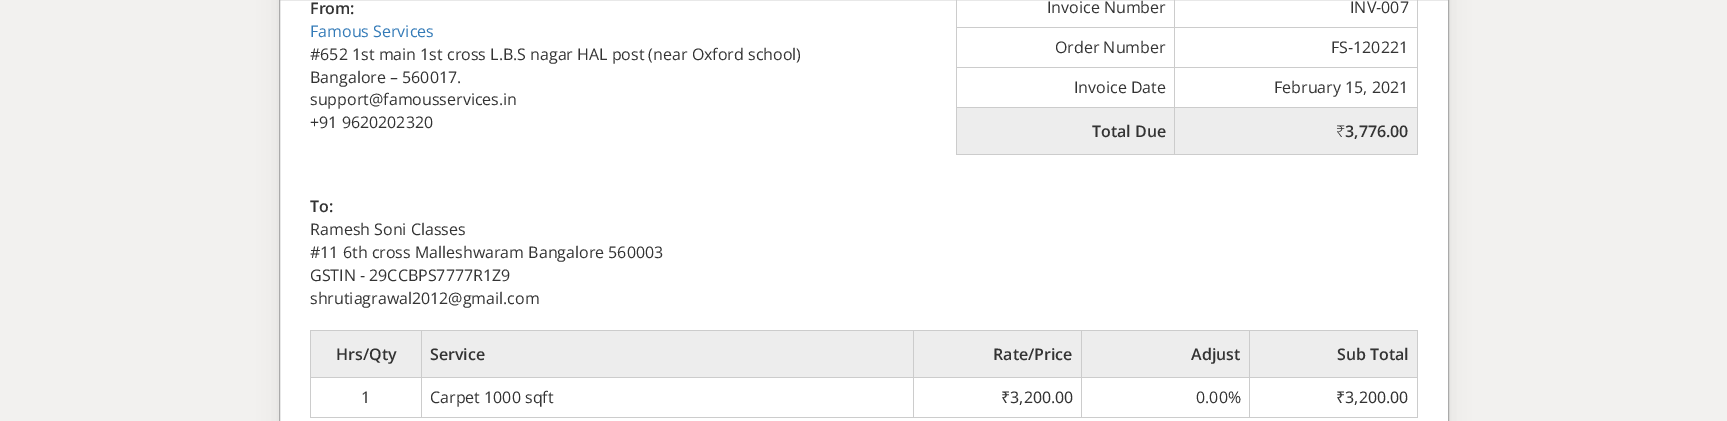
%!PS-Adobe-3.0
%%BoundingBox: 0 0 1727 421
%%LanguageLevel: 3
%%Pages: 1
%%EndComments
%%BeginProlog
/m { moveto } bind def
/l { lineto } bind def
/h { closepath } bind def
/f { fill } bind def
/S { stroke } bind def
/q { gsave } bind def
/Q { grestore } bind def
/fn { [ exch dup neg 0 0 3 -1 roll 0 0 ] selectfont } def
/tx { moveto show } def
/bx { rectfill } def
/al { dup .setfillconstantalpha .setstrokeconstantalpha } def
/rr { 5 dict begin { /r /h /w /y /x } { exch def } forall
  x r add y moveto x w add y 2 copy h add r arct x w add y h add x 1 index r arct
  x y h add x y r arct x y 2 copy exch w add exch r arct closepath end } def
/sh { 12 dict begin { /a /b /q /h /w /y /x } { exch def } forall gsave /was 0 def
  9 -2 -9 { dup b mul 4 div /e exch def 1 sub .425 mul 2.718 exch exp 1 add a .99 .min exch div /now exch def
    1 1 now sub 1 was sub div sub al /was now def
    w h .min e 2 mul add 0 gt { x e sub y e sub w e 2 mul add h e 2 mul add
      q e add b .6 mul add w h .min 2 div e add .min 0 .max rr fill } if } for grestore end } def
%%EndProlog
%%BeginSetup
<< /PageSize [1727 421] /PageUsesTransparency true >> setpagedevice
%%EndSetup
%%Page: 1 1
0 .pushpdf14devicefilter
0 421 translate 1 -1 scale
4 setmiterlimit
0.949 0.945 0.937 setrgbcolor
0 0 1727 421 bx
0 setgray
279 -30 1170 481 0 10 0.07 sh
1 setgray
279.5 -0.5 m 1448.5 -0.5 l 1448.5 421.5 l 279.5 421.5 l h q f Q
0.667 setgray
S
/OpenSans-SemiBold 16 fn
0.2 setgray
(From:) 310 14 tx
/OpenSans-Regular 16 fn
0.2 0.478 0.718 setrgbcolor
(Famous Services) 310 37 tx
0.2 setgray
(#652 1st main 1st cross L.B.S nagar HAL post \(near Oxford school\)) 310 60 tx
(Bangalore – 560017.) 310 83 tx
(support@famousservices.in) 310 105 tx
(+91 9620202320) 310 128 tx
0.8 setgray
1417 0 1 155 bx
956 154 462 1 bx
956 0 1 155 bx
0.2 setgray
(Invoice Number) 1047 13 tx
0.8 setgray
1174 27 244 1 bx
1174 67 244 1 bx
1174 107 244 1 bx
1174 107 1 48 bx
956 107 219 1 bx
1174 67 1 41 bx
956 67 219 1 bx
1174 27 1 41 bx
956 27 219 1 bx
1174 0 1 28 bx
0.2 setgray
(INV-007) 1350 13 tx
(Order Number) 1055 53 tx
(FS-120221) 1331 53 tx
(Invoice Date) 1074 93 tx
(February 15, 2021) 1274 93 tx
0.929 setgray
957 108 217 46 bx
/OpenSans-SemiBold 16 fn
0.2 setgray
(Total Due) 1092 137 tx
0.929 setgray
1175 108 242 46 bx
/NotoSans-Light 16 fn
0.2 setgray
(₹) 1336 137 tx
/OpenSans-SemiBold 16 fn
(3,776.00) 1345 137 tx
(To:) 310 212 tx
/OpenSans-Regular 16 fn
(Ramesh Soni Classes) 310 235 tx
(#11 6th cross Malleshwaram Bangalore 560003) 310 258 tx
(GSTIN - 29CCBPS7777R1Z9) 310 281 tx
(shrutiagrawal2012@gmail.com) 310 304 tx
0.8 setgray
310 330 1108 1 bx
1417 330 1 88 bx
310 417 1108 1 bx
310 330 1 88 bx
0.929 setgray
311 331 110 46 bx
/OpenSans-SemiBold 16 fn
0.2 setgray
(Hrs/Qty) 336 360 tx
0.929 setgray
422 331 491 46 bx
0.8 setgray
1249 377 169 1 bx
1249 377 1 41 bx
1081 377 169 1 bx
1081 377 1 41 bx
913 377 169 1 bx
913 377 1 41 bx
421 377 493 1 bx
421 377 1 41 bx
310 377 112 1 bx
421 330 1 48 bx
0.2 setgray
(Service) 430 360 tx
0.929 setgray
914 331 167 46 bx
0.8 setgray
913 330 1 48 bx
0.2 setgray
(Rate/Price) 993 360 tx
0.929 setgray
1082 331 167 46 bx
0.8 setgray
1081 330 1 48 bx
0.2 setgray
(Adjust) 1191 360 tx
0.929 setgray
1250 331 167 46 bx
0.8 setgray
1249 330 1 48 bx
0.2 setgray
(Sub Total) 1337 360 tx
/OpenSans-Regular 16 fn
(1) 361 403 tx
(Carpet 1000 sqft) 430 403 tx
/NotoSans-Regular 16 fn
(₹3,200.00) 1001 403 tx
/OpenSans-Regular 16 fn
(0.00%) 1196 403 tx
/NotoSans-Regular 16 fn
(₹3,200.00) 1336 403 tx
.poppdf14devicefilter showpage
%%EOF
